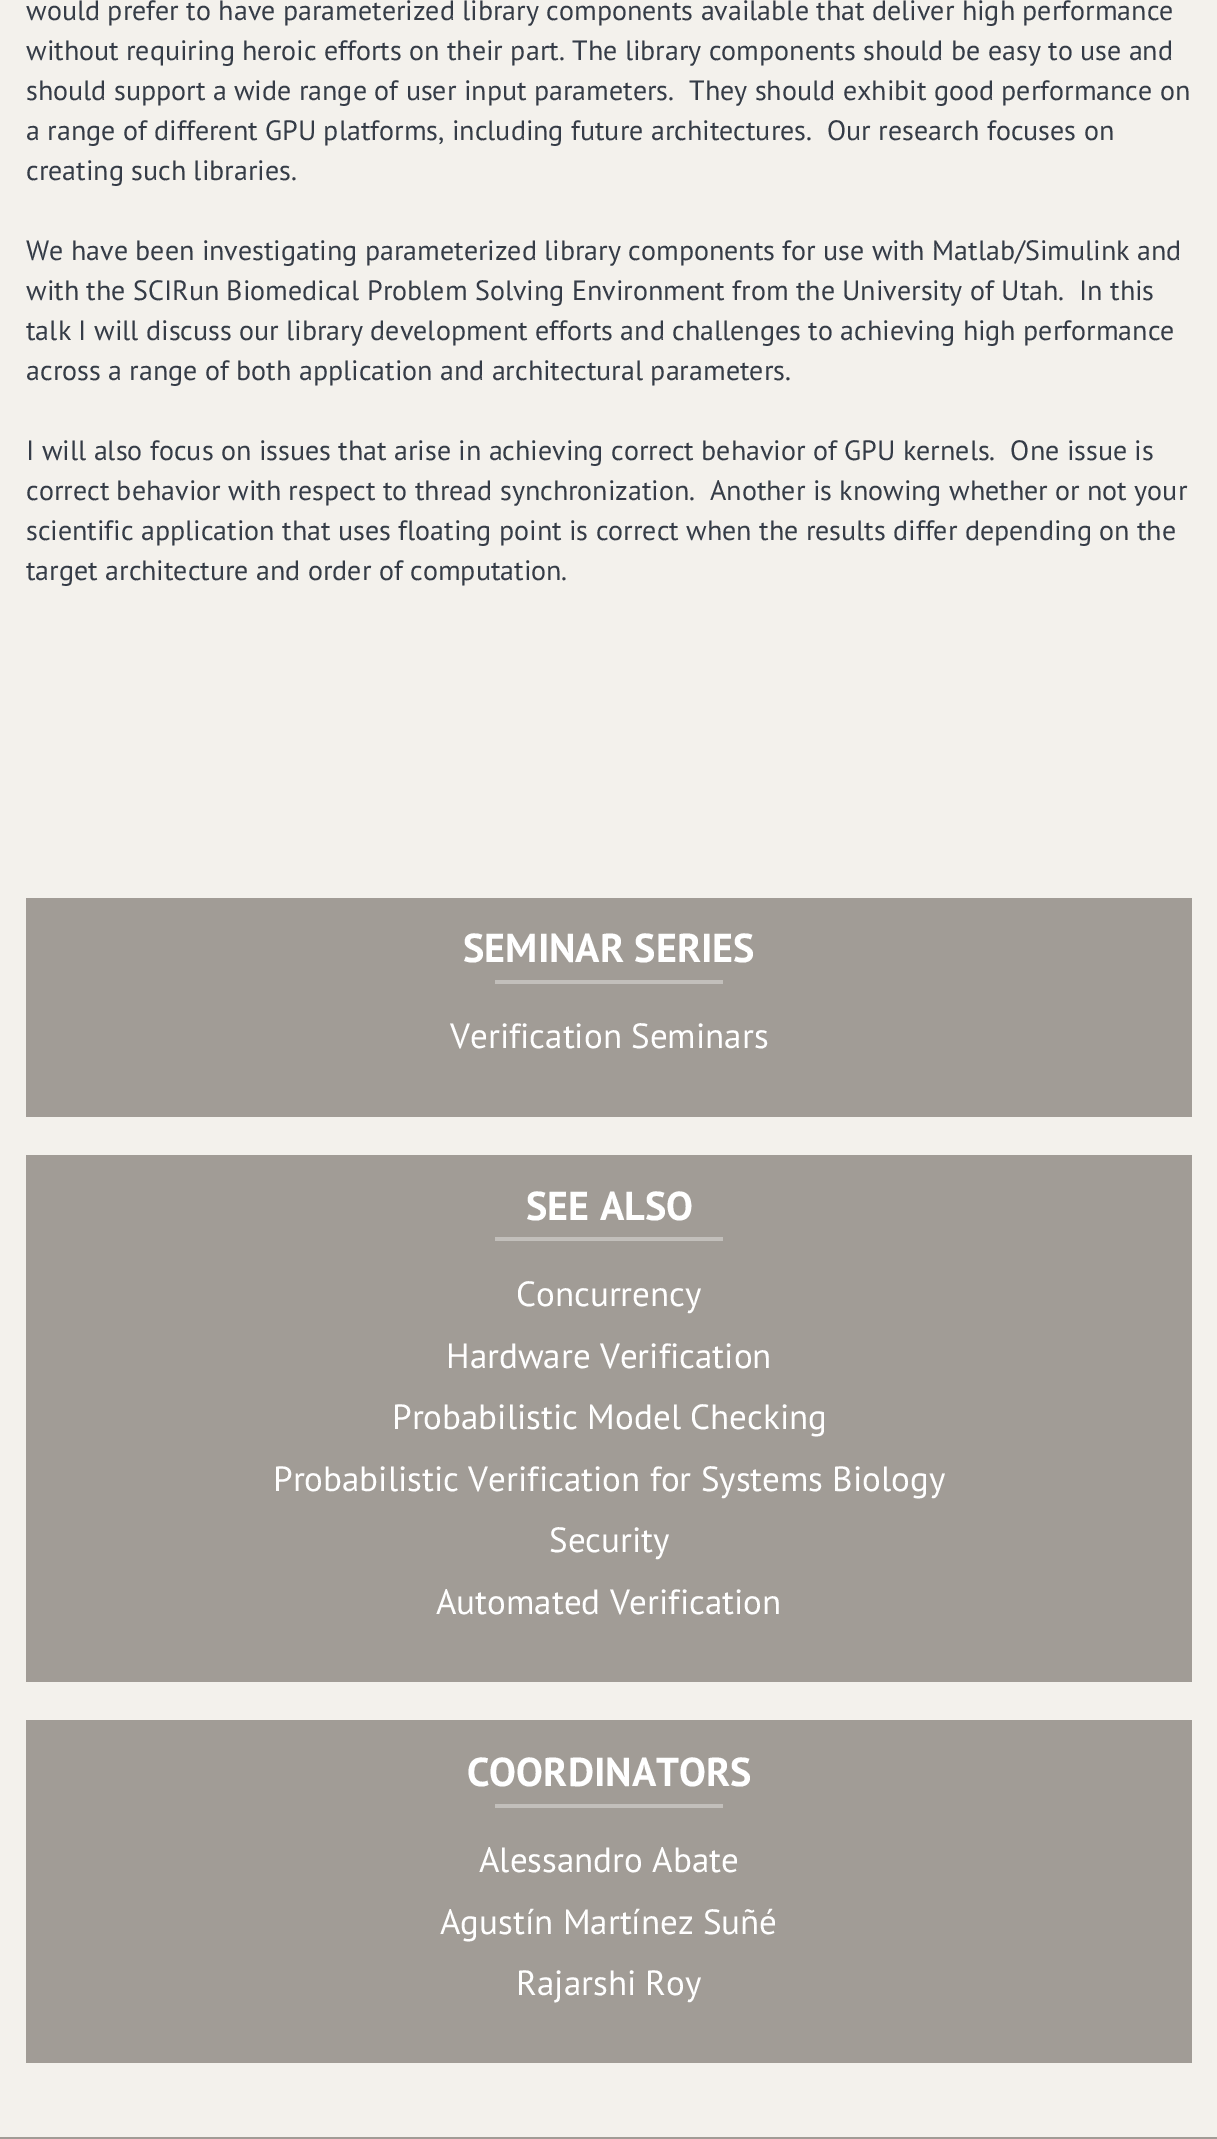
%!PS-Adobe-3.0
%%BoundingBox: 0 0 1217 2139
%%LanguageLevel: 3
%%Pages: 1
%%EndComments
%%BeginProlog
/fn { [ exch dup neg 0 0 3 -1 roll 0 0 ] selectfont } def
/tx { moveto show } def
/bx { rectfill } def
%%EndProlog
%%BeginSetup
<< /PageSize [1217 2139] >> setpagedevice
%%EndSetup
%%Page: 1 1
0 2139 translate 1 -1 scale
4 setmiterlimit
0.953 0.945 0.925 setrgbcolor
0 0 1217 2139 bx
/PTSans-Regular 28 fn
0.208 0.235 0.278 setrgbcolor
(would prefer to have parameterized library components available that deliver high performance) 26 20 tx
(without requiring heroic efforts on their part. The library components should be easy to use and) 26 60 tx
(should support a wide range of user input parameters.  They should exhibit good performance on) 26 100 tx
(a range of different GPU platforms, including future architectures.  Our research focuses on) 26 140 tx
(creating such libraries.) 26 180 tx
(We have been investigating parameterized library components for use with Matlab/Simulink and) 26 260 tx
(with the SCIRun Biomedical Problem Solving Environment from the University of Utah.  In this) 26 300 tx
(talk I will discuss our library development efforts and challenges to achieving high performance) 26 340 tx
(across a range of both application and architectural parameters.) 26 380 tx
(I will also focus on issues that arise in achieving correct behavior of GPU kernels.  One issue is) 26 460 tx
(correct behavior with respect to thread synchronization.  Another is knowing whether or not your) 26 500 tx
(scientific application that uses floating point is correct when the results differ depending on the) 26 540 tx
(target architecture and order of computation.) 26 580 tx
0.631 0.612 0.588 setrgbcolor
26 898 1166 219 bx
/PTSans-Bold 40.25 fn
1 setgray
(SEMINAR SERIES) 463 962 tx
0.761 0.749 0.733 setrgbcolor
495 980 228 4 bx
/PTSans-Regular 35 fn
1 setgray
(Verification Seminars) 450 1048 tx
0.631 0.612 0.588 setrgbcolor
26 1155 1166 527 bx
/PTSans-Bold 40.25 fn
1 setgray
(SEE ALSO) 526 1220 tx
0.761 0.749 0.733 setrgbcolor
495 1237 228 4 bx
/PTSans-Regular 35 fn
1 setgray
(Concurrency) 516 1306 tx
(Hardware Verification) 446 1368 tx
(Probabilistic Model Checking) 392 1429 tx
(Probabilistic Verification for Systems Biology) 273 1491 tx
(Security) 549 1552 tx
(Automated Verification) 436 1614 tx
0.631 0.612 0.588 setrgbcolor
26 1720 1166 343 bx
/PTSans-Bold 40.25 fn
1 setgray
(COORDINATORS) 467 1786 tx
0.761 0.749 0.733 setrgbcolor
495 1804 228 4 bx
/PTSans-Regular 35 fn
1 setgray
(Alessandro Abate) 479 1872 tx
(Agustín Martínez Suñé) 440 1934 tx
(Rajarshi Roy) 516 1995 tx
0.631 0.612 0.588 setrgbcolor
0 2137 1217 2 bx
showpage
%%EOF
